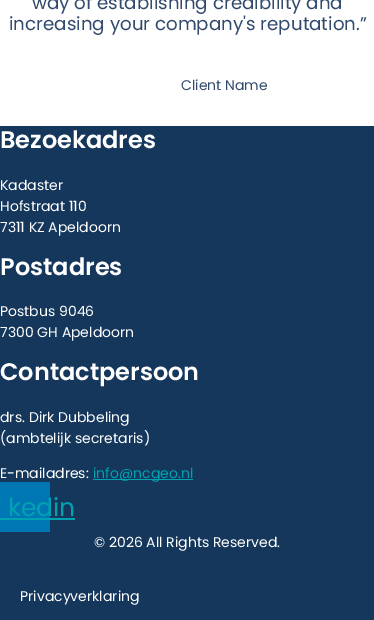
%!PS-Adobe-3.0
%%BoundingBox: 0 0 374 620
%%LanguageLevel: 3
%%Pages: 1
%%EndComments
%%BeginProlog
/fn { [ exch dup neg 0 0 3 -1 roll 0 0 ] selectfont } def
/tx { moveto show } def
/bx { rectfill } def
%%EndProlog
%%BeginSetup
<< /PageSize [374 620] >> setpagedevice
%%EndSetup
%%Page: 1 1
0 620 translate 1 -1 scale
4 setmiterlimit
1 setgray
0 0 374 620 bx
/Poppins-Regular 18.25 fn
0.196 0.29 0.427 setrgbcolor
(way of establishing credibility and) 32 9 tx
(increasing your company's reputation.”) 9 30 tx
/Poppins-Regular 14 fn
(Client Name) 181 90 tx
0.082 0.216 0.361 setrgbcolor
0 126 374 494 bx
/Poppins-SemiBold 24 fn
1 setgray
(Bezoekadres) 0 148 tx
/Poppins-Regular 14 fn
(Kadaster) 0 190 tx
(Hofstraat 110) 0 211 tx
(7311 KZ Apeldoorn) 0 232 tx
/Poppins-SemiBold 24 fn
(Postadres) 0 275 tx
/Poppins-Regular 14 fn
(Postbus 9046) 0 316 tx
(7300 GH Apeldoorn) 0 337 tx
/Poppins-SemiBold 24 fn
(Contactpersoon) 0 380 tx
/Poppins-Regular 14 fn
(drs. Dirk Dubbeling) 0 422 tx
(\(ambtelijk secretaris\)) 0 443 tx
(E-mailadres:) 0 478 tx
0 0.635 0.698 setrgbcolor
93 479 100 1 bx
(info@ncgeo.nl) 93 478 tx
0 0.467 0.71 setrgbcolor
0 482 50 50 bx
/Poppins-Regular 25 fn
0 0.635 0.698 setrgbcolor
(kedin) 8 516 tx
0 518 75 2 bx
/Poppins-Regular 14 fn
1 setgray
(© 2026 All Rights Reserved.) 94 547 tx
(Privacyverklaring) 20 601 tx
showpage
%%EOF
